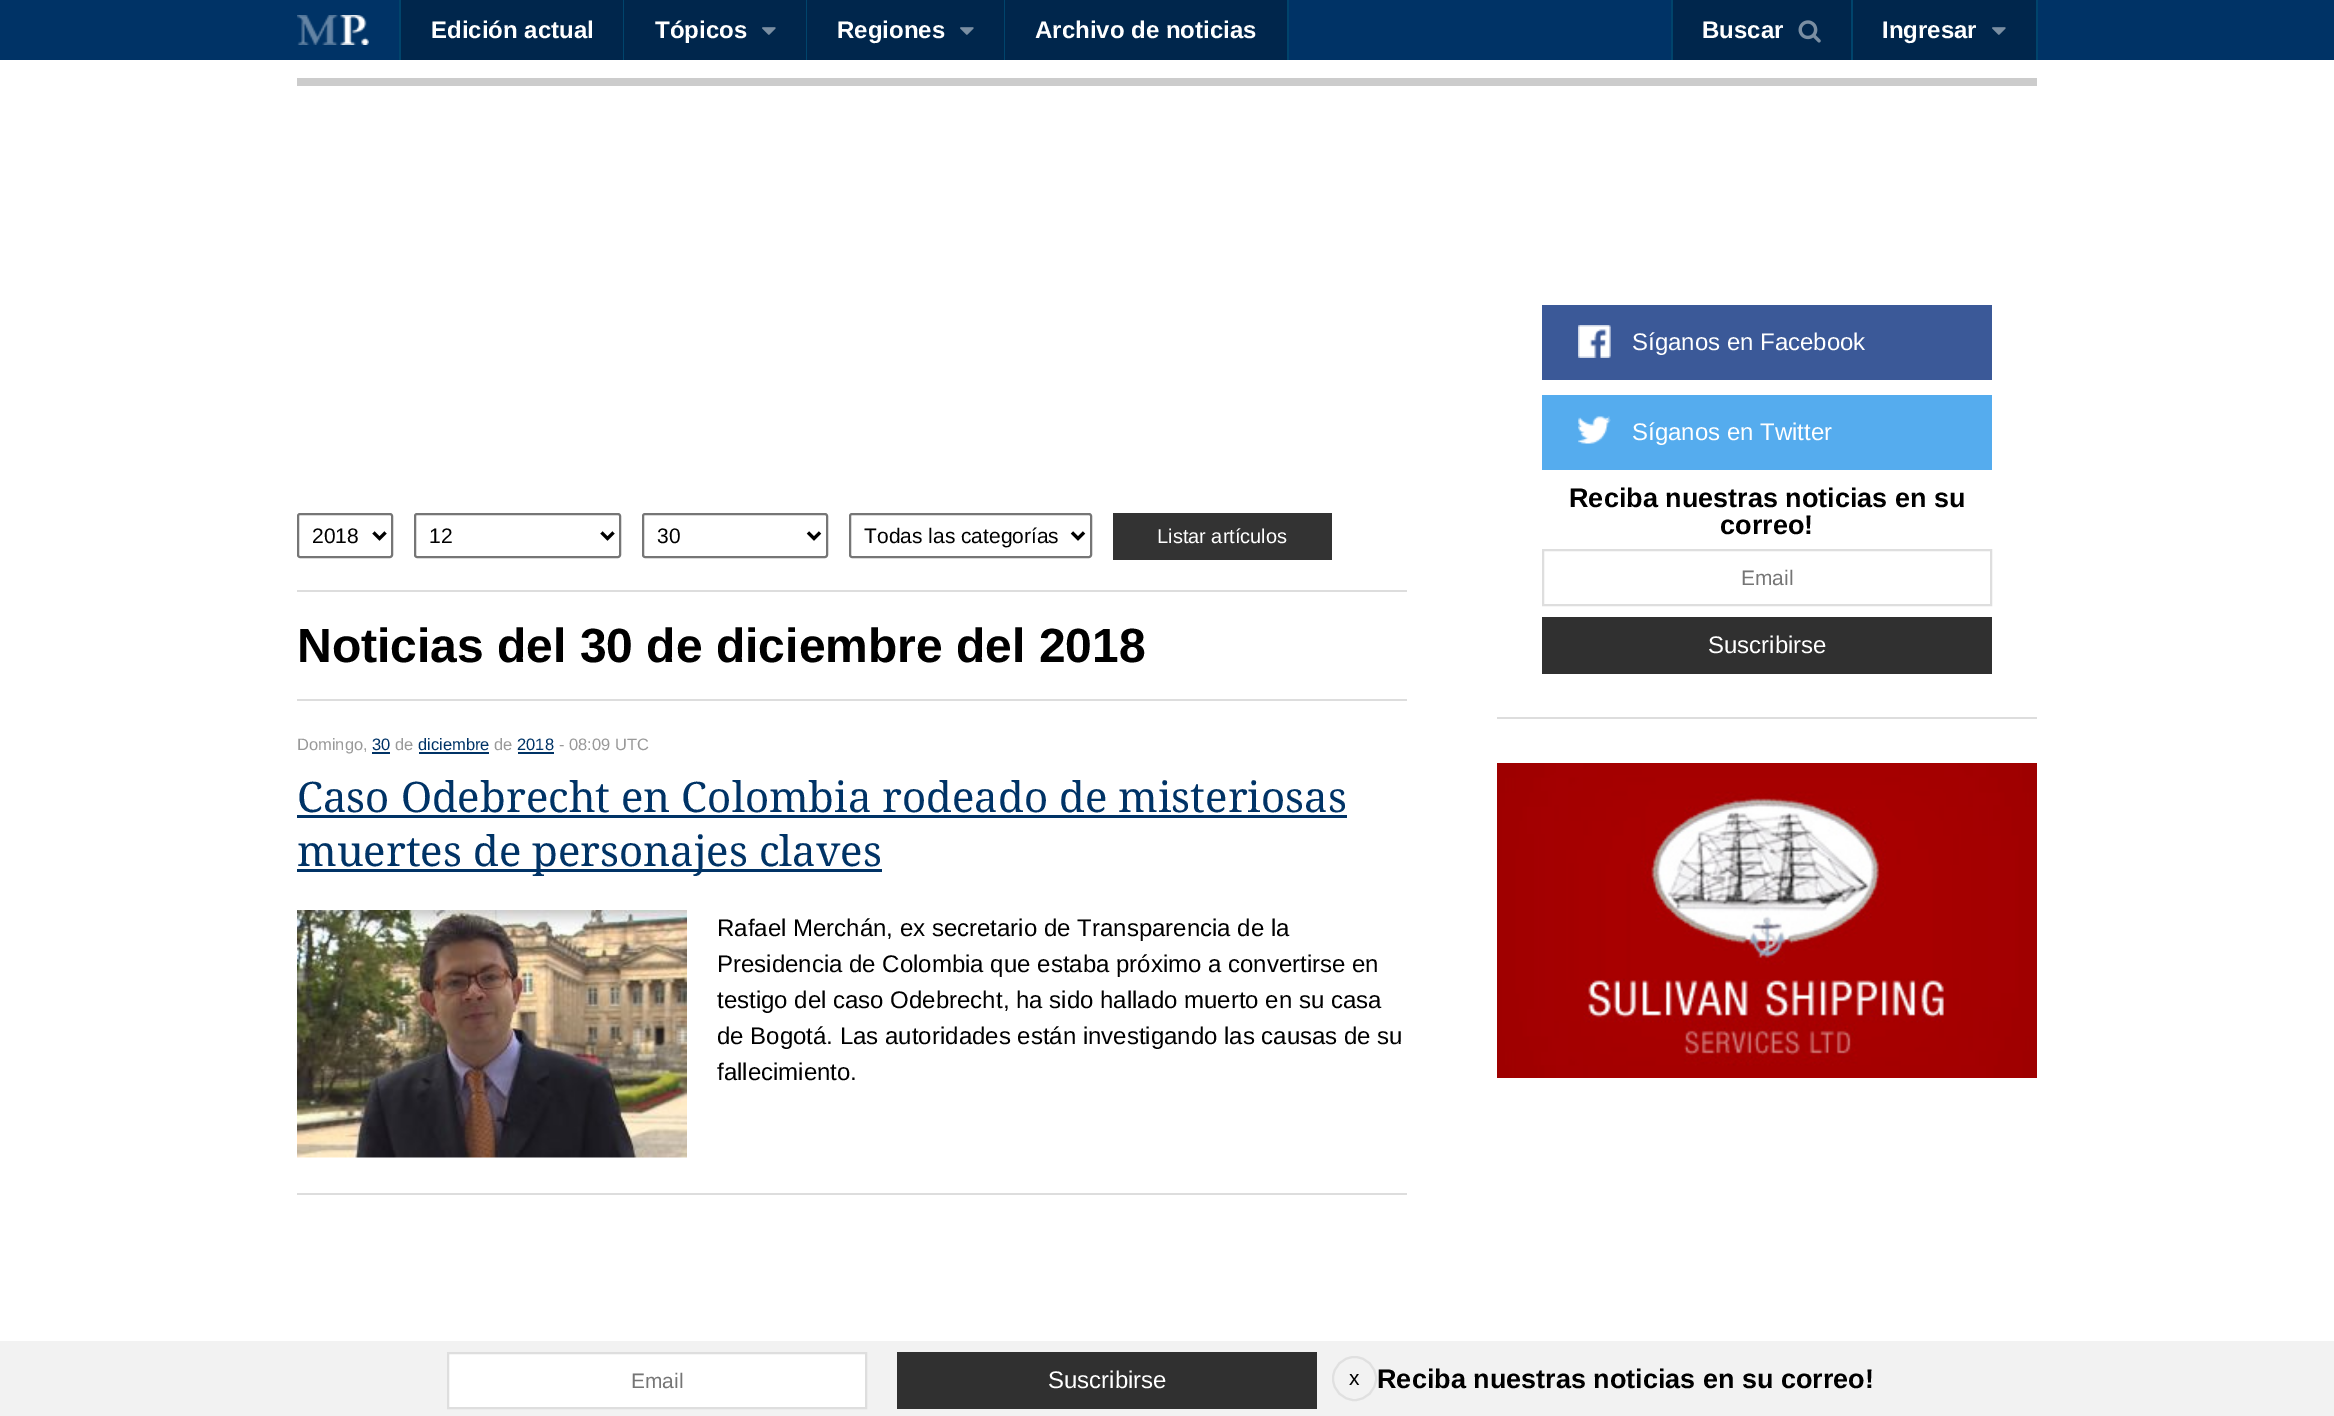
%!PS-Adobe-3.0
%%BoundingBox: 0 0 2334 1416
%%LanguageLevel: 3
%%Pages: 1
%%EndComments
%%BeginProlog
/m { moveto } bind def
/l { lineto } bind def
/h { closepath } bind def
/f { fill } bind def
/S { stroke } bind def
/q { gsave } bind def
/Q { grestore } bind def
/w { setlinewidth } bind def
/fn { [ exch dup neg 0 0 3 -1 roll 0 0 ] selectfont } def
/tx { moveto show } def
/bx { rectfill } def
/ci { newpath 0 360 arc closepath } def
/rr { 5 dict begin { /r /h /w /y /x } { exch def } forall
  x r add y moveto x w add y 2 copy h add r arct x w add y h add x 1 index r arct
  x y h add x y r arct x y 2 copy exch w add exch r arct closepath end } def
/im { 5 dict begin { /h /w /y /x /name } { exch def } forall
  gsave x y translate w h scale
  w h 8 [w 0 0 h 0 0] name (r) file false 3 colorimage grestore end } def
%%EndProlog
%%BeginSetup
<< /PageSize [2334 1416] >> setpagedevice
%%EndSetup
%%Page: 1 1
0 1416 translate 1 -1 scale
4 setmiterlimit
1 setgray
0 0 2334 1416 bx
0 0.2 0.4 setrgbcolor
0 0 2334 60 bx
(image0.raw) 297 15 72 30 im
0 0.149 0.298 setrgbcolor
401 0 222 60 bx
0 0.267 0.424 setrgbcolor
623 0 1 60 bx
399 0 2 60 bx
/LiberationSans-Bold 24 fn
1 setgray
(Edición actual) 431 38 tx
0 0.149 0.298 setrgbcolor
624 0 182 60 bx
0 0.267 0.424 setrgbcolor
806 0 1 60 bx
1 setgray
(Tópicos) 655 38 tx
(image1.raw) 762 27 14 8 im
0 0.149 0.298 setrgbcolor
807 0 197 60 bx
0 0.267 0.424 setrgbcolor
1004 0 1 60 bx
1 setgray
(Regiones) 837 38 tx
(image1.raw) 960 27 14 8 im
0 0.149 0.298 setrgbcolor
1005 0 282 60 bx
0 0.267 0.424 setrgbcolor
1287 0 2 60 bx
1 setgray
(Archivo de noticias) 1035 38 tx
0 0.149 0.298 setrgbcolor
1673 0 178 60 bx
0 0.267 0.424 setrgbcolor
1851 0 2 60 bx
1671 0 2 60 bx
1 setgray
(Buscar) 1702 38 tx
(image2.raw) 1798 20 23 23 im
0 0.149 0.298 setrgbcolor
1853 0 183 60 bx
0 0.267 0.424 setrgbcolor
2036 0 2 60 bx
1 setgray
(Ingresar) 1882 38 tx
(image1.raw) 1992 27 14 8 im
0.949 setgray
0 1341 2334 75 bx
1 setgray
448 1353 m 866 1353 l 866 1408 l 448 1408 l h q f Q
0.871 setgray
2 w
S
/LiberationSans-Regular 21 fn
0.459 setgray
(Email) 631 1388 tx
0.188 setgray
897 1352 420 57 bx
/LiberationSans-Regular 24 fn
1 setgray
(Suscribirse) 1048 1388 tx
0.878 setgray
1354.5 1378.5 21.5 ci S
/LiberationSans-Regular 21 fn
0 setgray
(x) 1349 1385 tx
/LiberationSans-Bold 27 fn
(Reciba nuestras noticias en su correo!) 1377 1388 tx
0.8 setgray
297 78 1740 8 bx
0.867 setgray
1497 717 540 2 bx
0.231 0.349 0.596 setrgbcolor
1542 305 450 75 bx
(image3.raw) 1578 325 33 33 im
/LiberationSans-Regular 24 fn
1 setgray
(Síganos en Facebook) 1632 350 tx
0.333 0.675 0.933 setrgbcolor
1542 395 450 75 bx
(image4.raw) 1578 416 33 28 im
1 setgray
(Síganos en Twitter) 1632 440 tx
/LiberationSans-Bold 27 fn
0 setgray
(Reciba nuestras noticias en su) 1569 507 tx
(correo!) 1720 534 tx
0.871 setgray
1543 550 448 55 rectstroke
/LiberationSans-Regular 21 fn
0.459 setgray
(Email) 1741 585 tx
0.188 setgray
1542 617 450 57 bx
/LiberationSans-Regular 24 fn
1 setgray
(Suscribirse) 1708 653 tx
(image5.raw) 1497 763 540 315 im
0.867 setgray
297 590 1110 2 bx
0.463 setgray
298 514 94 43 2 rr S
0 setgray
3 w
373.5 532.5 m 379.5 538.5 l 385.5 532.5 l S
/LiberationSans-Regular 21 fn
(2018) 312 543 tx
0.463 setgray
2 w
415 514 205 43 2 rr S
0 setgray
3 w
601.5 532.5 m 607.5 538.5 l 613.5 532.5 l S
(12) 429 543 tx
0.463 setgray
2 w
643 514 184 43 2 rr S
0 setgray
3 w
808 532.5 m 814 538.5 l 820 532.5 l S
(30) 657 543 tx
0.463 setgray
2 w
850 514 241 43 2 rr S
0 setgray
3 w
1072 532.5 m 1078 538.5 l 1084 532.5 l S
(Todas las categorías) 864 543 tx
0.2 setgray
1113 513 219 47 bx
/LiberationSans-Regular 20 fn
1 setgray
(Listar artículos) 1157 543 tx
0.867 setgray
297 699 1110 2 bx
/LiberationSans-Bold 48 fn
0 setgray
(Noticias del 30 de diciembre del 2018) 297 662 tx
0.867 setgray
297 1193 1110 2 bx
/LiberationSans-Regular 16.5 fn
0.6 setgray
(Domingo,) 297 750 tx
0 0.2 0.4 setrgbcolor
(30) 372 750 tx
372 752 18 2 bx
0.6 setgray
(de) 395 750 tx
0 0.2 0.4 setrgbcolor
(diciembre) 418 750 tx
419 752 70 2 bx
0.6 setgray
(de) 494 750 tx
0 0.2 0.4 setrgbcolor
(2018) 517 750 tx
518 752 36 2 bx
0.6 setgray
(- 08:09 UTC) 559 750 tx
/DroidSerif-Regular 42 fn
0 0.2 0.4 setrgbcolor
(Caso Odebrecht en Colombia rodeado de misteriosas) 297 812 tx
297 815 1050 3 bx
297 869 585 3 bx
(muertes de personajes claves) 297 866 tx
(image6.raw) 297 910 390 248 im
/LiberationSans-Regular 24 fn
0 setgray
(Rafael Merchán, ex secretario de Transparencia de la) 717 936 tx
(Presidencia de Colombia que estaba próximo a convertirse en) 717 972 tx
(testigo del caso Odebrecht, ha sido hallado muerto en su casa) 717 1008 tx
(de Bogotá. Las autoridades están investigando las causas de su) 717 1044 tx
(fallecimiento.) 717 1080 tx
showpage
%%EOF
